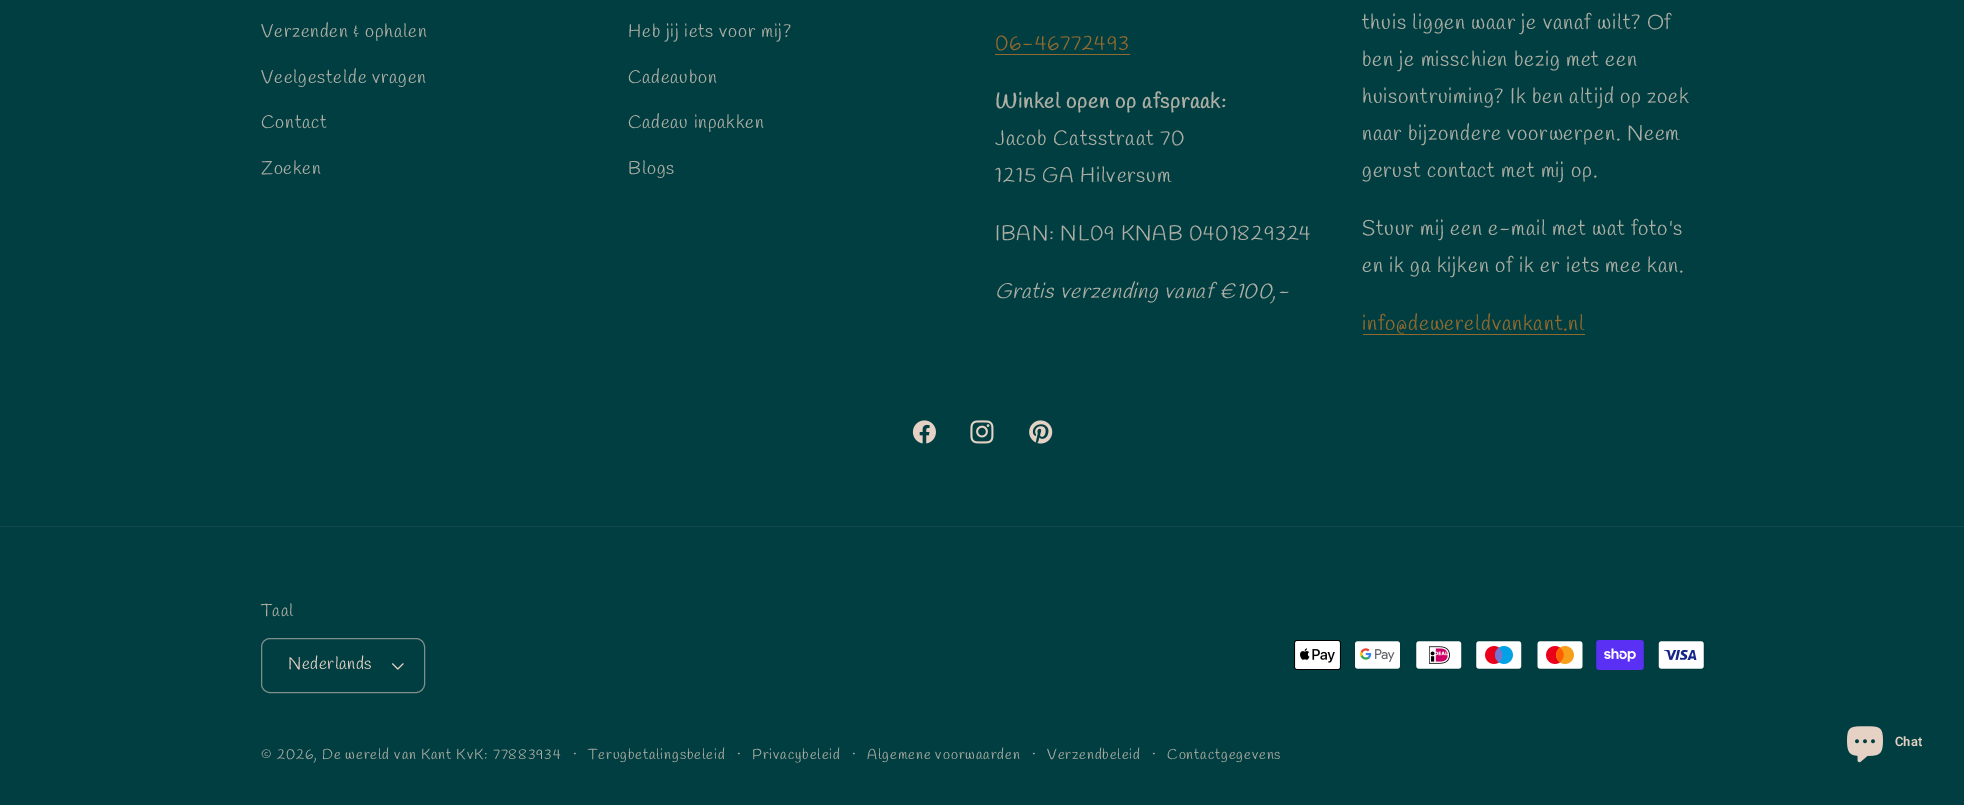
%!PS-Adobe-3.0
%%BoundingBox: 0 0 1964 805
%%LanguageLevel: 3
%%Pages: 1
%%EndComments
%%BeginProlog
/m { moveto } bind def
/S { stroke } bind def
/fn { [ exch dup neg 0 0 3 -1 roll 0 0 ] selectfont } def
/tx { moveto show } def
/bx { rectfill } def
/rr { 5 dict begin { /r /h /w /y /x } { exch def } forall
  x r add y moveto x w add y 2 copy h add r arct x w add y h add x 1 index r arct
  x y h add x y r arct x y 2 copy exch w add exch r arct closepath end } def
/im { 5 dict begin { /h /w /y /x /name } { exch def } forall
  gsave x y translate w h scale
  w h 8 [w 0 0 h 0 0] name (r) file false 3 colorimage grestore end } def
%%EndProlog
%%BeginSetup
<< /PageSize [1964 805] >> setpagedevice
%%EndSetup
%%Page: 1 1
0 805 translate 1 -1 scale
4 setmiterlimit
0.004 0.243 0.255 setrgbcolor
0 0 1964 805 bx
/Handlee-Regular 18.4 fn
0.675 0.678 0.639 setrgbcolor
261 37 m 0.8 0 (Verzenden & ophalen) ashow
261 83 m 0.8 0 (Veelgestelde vragen) ashow
261 128 m 0.8 0 (Contact) ashow
261 174 m 0.8 0 (Zoeken) ashow
628 37 m 0.8 0 (Heb jij iets voor mij?) ashow
628 83 m 0.8 0 (Cadeaubon) ashow
628 128 m 0.8 0 (Cadeau inpakken) ashow
628 174 m 0.8 0 (Blogs) ashow
/Handlee-Regular 21 fn
0.576 0.416 0.176 setrgbcolor
995 50 m 0.8 0 (06-46772493) ashow
995 54 135 1 bx
/Handlee-Bold 21 fn
0.675 0.678 0.639 setrgbcolor
995 108 m 0.8 0 (Winkel open op afspraak:) ashow
/Handlee-Regular 21 fn
995 145 m 0.8 0 (Jacob Catsstraat 70) ashow
995 182 m 0.8 0 (1215 GA Hilversum) ashow
995 240 m 0.8 0 (IBAN: NL09 KNAB 0401829324) ashow
/Handlee-Italic 21 fn
995 298 m 0.8 0 (Gratis verzending vanaf €100,-) ashow
/Handlee-Regular 21 fn
1362 29 m 0.8 0 (thuis liggen waar je vanaf wilt? Of) ashow
1362 66 m 0.8 0 (ben je misschien bezig met een) ashow
1362 103 m 0.8 0 (huisontruiming? Ik ben altijd op zoek) ashow
1362 140 m 0.8 0 (naar bijzondere voorwerpen. Neem) ashow
1362 177 m 0.8 0 (gerust contact met mij op.) ashow
1362 235 m 0.8 0 (Stuur mij een e-mail met wat foto's) ashow
1362 272 m 0.8 0 (en ik ga kijken of ik er iets mee kan.) ashow
0.576 0.416 0.176 setrgbcolor
1362 330 m 0.8 0 (info@dewereldvankant.nl) ashow
1363 334 222 1 bx
(image0.raw) 912 420 24 24 im
(image1.raw) 970 420 24 24 im
(image2.raw) 1029 420 24 24 im
0.075 0.29 0.294 setrgbcolor
0 526 1964 1 bx
/Handlee-Regular 17 fn
0.675 0.678 0.639 setrgbcolor
261 616 m 0.5 0 (Taal) ashow
(image3.raw) 391 663 13 7 im
0.494 0.561 0.537 setrgbcolor
261.5 638.5 163 54 8.5 rr S
0.898 0.824 0.769 setrgbcolor
288 669 m 0.5 0 (Nederlands) ashow
(image4.raw) 1294 640 47 30 im
(image5.raw) 1354 640 47 30 im
(image6.raw) 1415 640 47 30 im
(image7.raw) 1475 640 47 30 im
(image8.raw) 1537 640 46 30 im
(image9.raw) 1596 640 48 30 im
(image10.raw) 1658 640 47 30 im
/Handlee-Regular 14.4 fn
0.675 0.678 0.639 setrgbcolor
261 759 m 0.9 0 (© 2026, De wereld van Kant KvK: 77883934) ashow
/Handlee-Regular 16 fn
573 759 m 0.9 0 (·) ashow
/Handlee-Regular 14.4 fn
588 759 m 0.9 0 (Terugbetalingsbeleid) ashow
/Handlee-Regular 16 fn
737 759 m 0.9 0 (·) ashow
/Handlee-Regular 14.4 fn
752 759 m 0.9 0 (Privacybeleid) ashow
/Handlee-Regular 16 fn
852 759 m 0.9 0 (·) ashow
/Handlee-Regular 14.4 fn
867 759 m 0.9 0 (Algemene voorwaarden) ashow
/Handlee-Regular 16 fn
1032 759 m 0.9 0 (·) ashow
/Handlee-Regular 14.4 fn
1047 759 m 0.9 0 (Verzendbeleid) ashow
/Handlee-Regular 16 fn
1152 759 m 0.9 0 (·) ashow
/Handlee-Regular 14.4 fn
1167 759 m 0.9 0 (Contactgegevens) ashow
(image11.raw) 1847 726 36 37 im
/Roboto-SemiBold 13 fn
0.898 0.824 0.769 setrgbcolor
(Chat) 1895 746 tx
showpage
%%EOF
